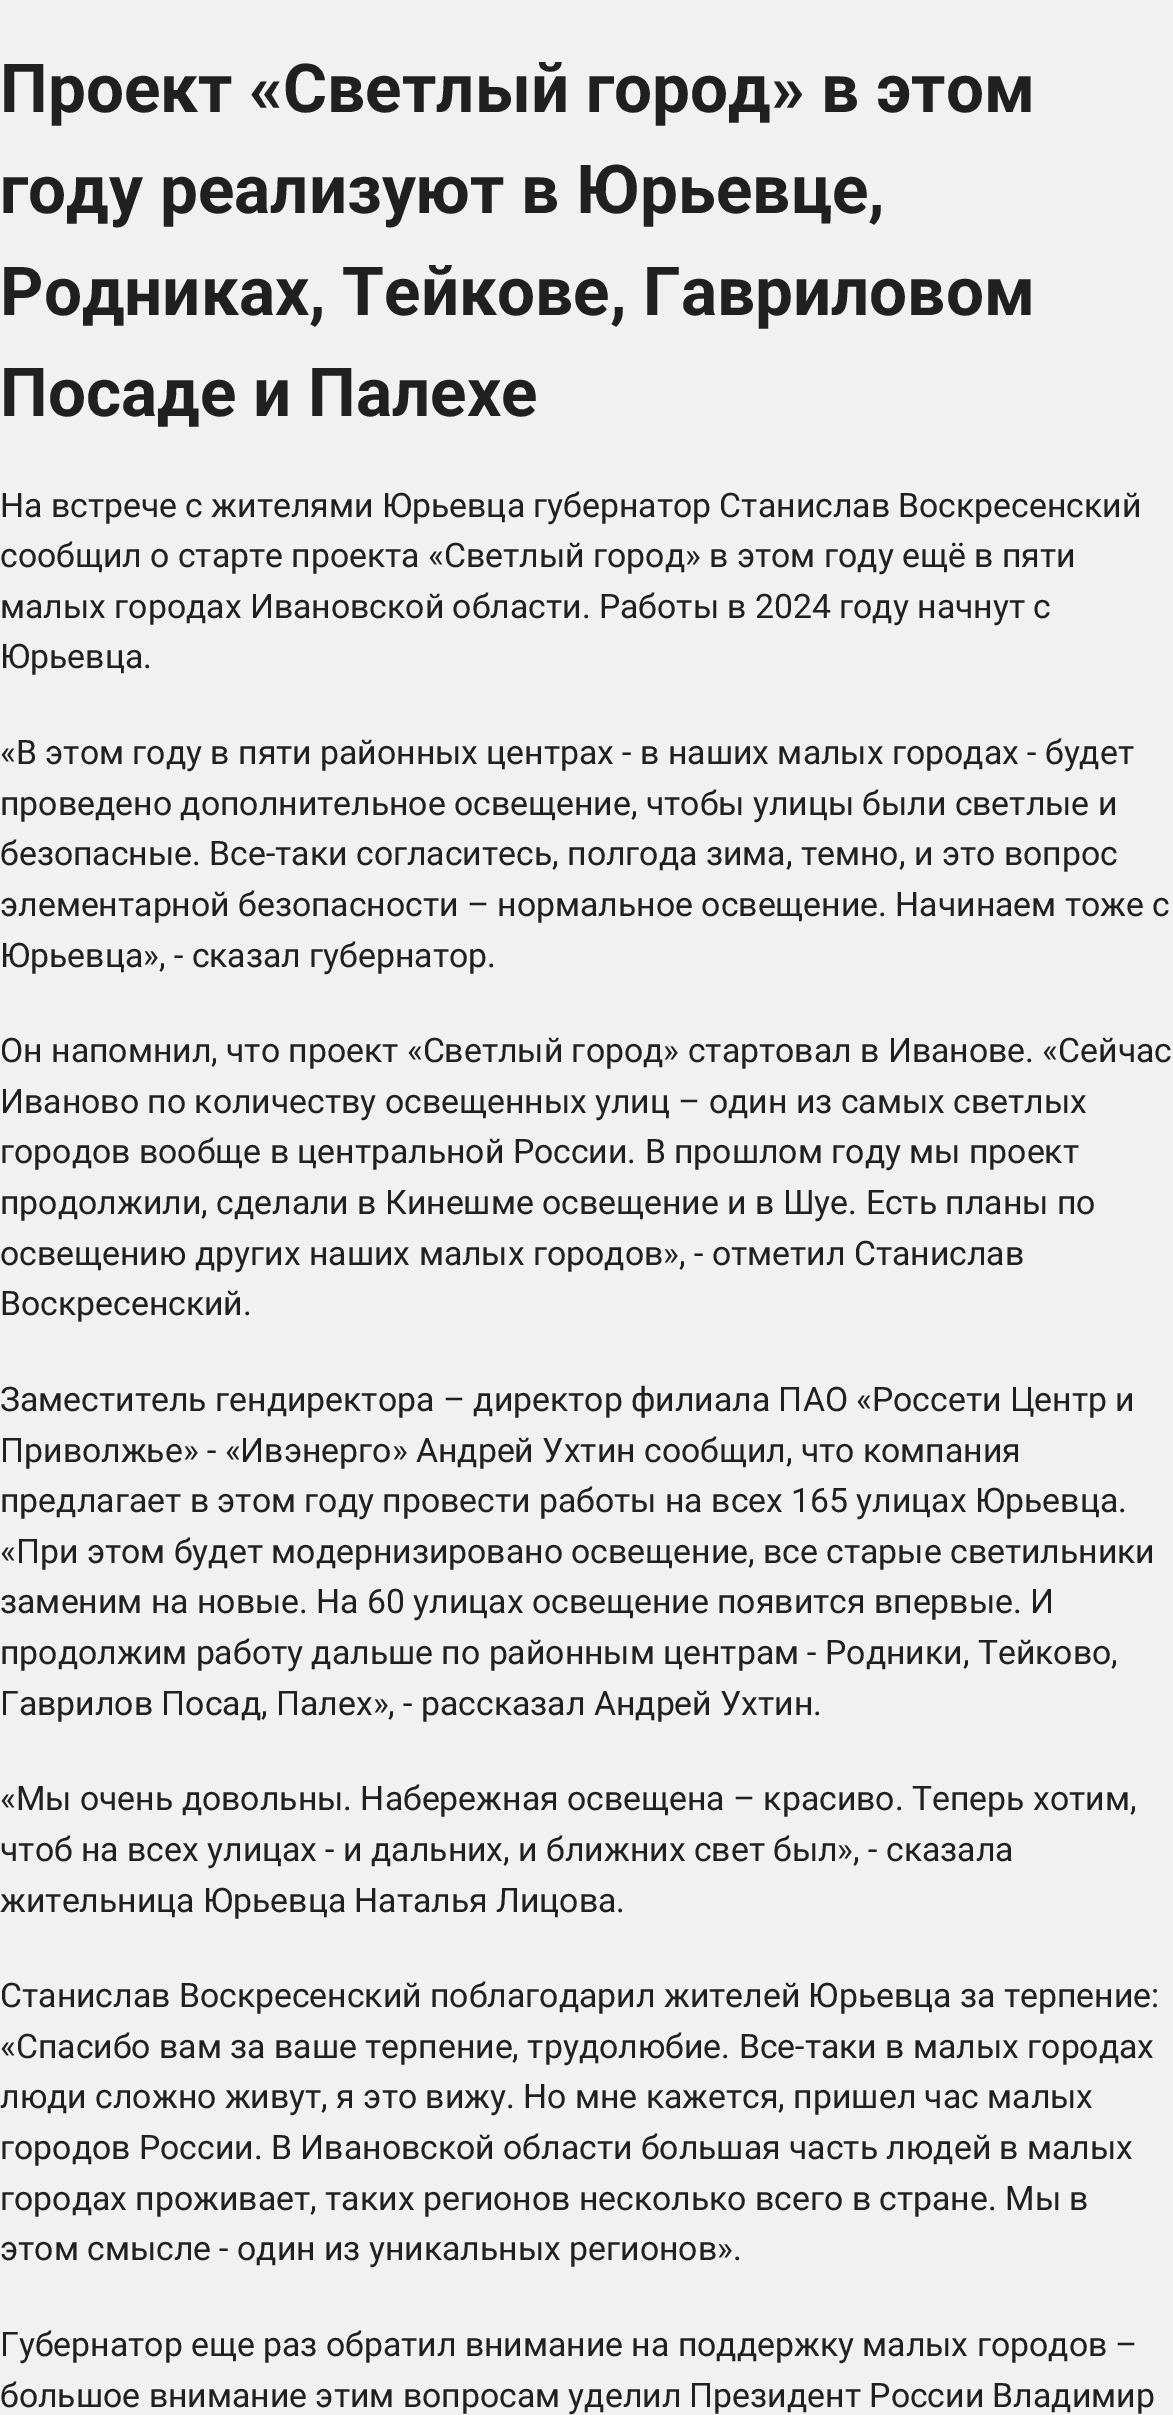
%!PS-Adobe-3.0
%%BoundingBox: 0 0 1173 2415
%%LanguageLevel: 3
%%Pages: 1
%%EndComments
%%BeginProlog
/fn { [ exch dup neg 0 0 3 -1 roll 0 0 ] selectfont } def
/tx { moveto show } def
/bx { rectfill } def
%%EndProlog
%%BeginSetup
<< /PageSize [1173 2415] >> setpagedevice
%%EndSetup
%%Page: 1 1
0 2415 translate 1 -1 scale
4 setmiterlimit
0.945 setgray
0 0 1173 2415 bx
/Roboto-Bold 67.5 fn
0.125 setgray
(Проект «Светлый город» в этом) 0 112 tx
(году реализуют в Юрьевце,) 0 213 tx
(Родниках, Тейкове, Гавриловом) 0 315 tx
(Посаде и Палехе) 0 416 tx
/Roboto-Regular 33.75 fn
(На встрече с жителями Юрьевца губернатор Станислав Воскресенский) 0 517 tx
(сообщил о старте проекта «Светлый город» в этом году ещё в пяти) 0 567 tx
(малых городах Ивановской области. Работы в 2024 году начнут с) 0 618 tx
(Юрьевца.) 0 668 tx
(«В этом году в пяти районных центрах - в наших малых городах - будет) 0 764 tx
(проведено дополнительное освещение, чтобы улицы были светлые и) 0 815 tx
(безопасные. Все-таки согласитесь, полгода зима, темно, и это вопрос) 0 865 tx
(элементарной безопасности – нормальное освещение. Начинаем тоже с) 0 916 tx
(Юрьевца», - сказал губернатор.) 0 967 tx
(Он напомнил, что проект «Светлый город» стартовал в Иванове. «Сейчас) 0 1062 tx
(Иваново по количеству освещенных улиц – один из самых светлых) 0 1113 tx
(городов вообще в центральной России. В прошлом году мы проект) 0 1163 tx
(продолжили, сделали в Кинешме освещение и в Шуе. Есть планы по) 0 1214 tx
(освещению других наших малых городов», - отметил Станислав) 0 1265 tx
(Воскресенский.) 0 1315 tx
(Заместитель гендиректора – директор филиала ПАО «Россети Центр и) 0 1411 tx
(Приволжье» - «Ивэнерго» Андрей Ухтин сообщил, что компания) 0 1462 tx
(предлагает в этом году провести работы на всех 165 улицах Юрьевца.) 0 1512 tx
(«При этом будет модернизировано освещение, все старые светильники) 0 1563 tx
(заменим на новые. На 60 улицах освещение появится впервые. И) 0 1613 tx
(продолжим работу дальше по районным центрам - Родники, Тейково,) 0 1664 tx
(Гаврилов Посад, Палех», - рассказал Андрей Ухтин.) 0 1715 tx
(«Мы очень довольны. Набережная освещена – красиво. Теперь хотим,) 0 1810 tx
(чтоб на всех улицах - и дальних, и ближних свет был», - сказала) 0 1861 tx
(жительница Юрьевца Наталья Лицова.) 0 1912 tx
(Станислав Воскресенский поблагодарил жителей Юрьевца за терпение:) 0 2007 tx
(«Спасибо вам за ваше терпение, трудолюбие. Все-таки в малых городах) 0 2058 tx
(люди сложно живут, я это вижу. Но мне кажется, пришел час малых) 0 2108 tx
(городов России. В Ивановской области большая часть людей в малых) 0 2159 tx
(городах проживает, таких регионов несколько всего в стране. Мы в) 0 2210 tx
(этом смысле - один из уникальных регионов».) 0 2260 tx
(Губернатор еще раз обратил внимание на поддержку малых городов –) 0 2356 tx
(большое внимание этим вопросам уделил Президент России Владимир) 0 2407 tx
showpage
%%EOF
